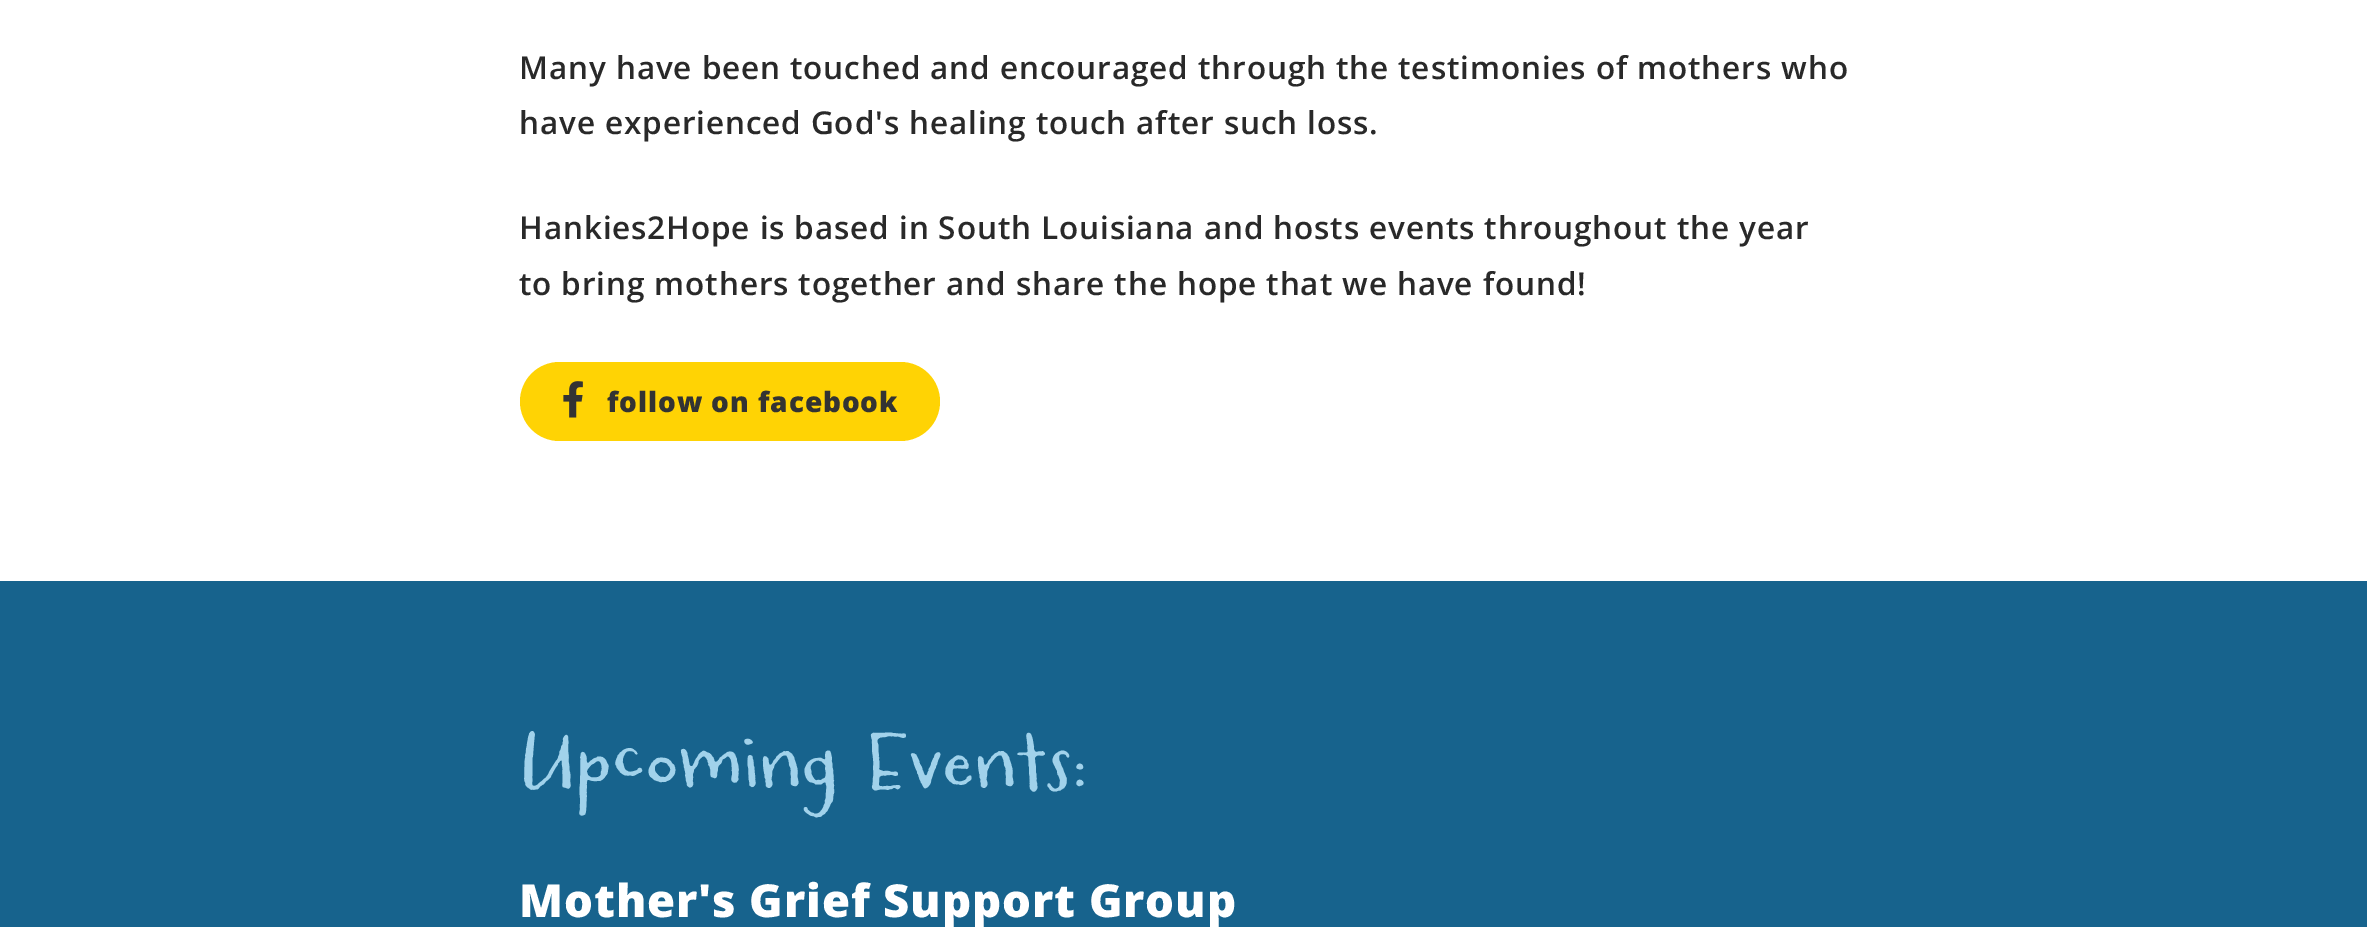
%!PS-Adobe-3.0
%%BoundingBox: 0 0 2367 927
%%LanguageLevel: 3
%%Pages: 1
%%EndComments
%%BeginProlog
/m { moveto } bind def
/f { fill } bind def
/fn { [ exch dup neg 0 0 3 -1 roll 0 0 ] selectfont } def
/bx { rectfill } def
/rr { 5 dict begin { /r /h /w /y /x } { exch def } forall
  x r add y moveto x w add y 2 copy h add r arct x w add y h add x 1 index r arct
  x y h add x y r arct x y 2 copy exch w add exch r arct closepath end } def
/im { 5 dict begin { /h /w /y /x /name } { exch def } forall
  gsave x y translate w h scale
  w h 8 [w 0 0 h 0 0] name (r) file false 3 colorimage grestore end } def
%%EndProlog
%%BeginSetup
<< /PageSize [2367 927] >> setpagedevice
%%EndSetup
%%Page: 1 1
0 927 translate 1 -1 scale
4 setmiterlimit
1 setgray
0 0 2367 927 bx
/OpenSans-SemiBold 31.5 fn
0.161 setgray
519 79 m 0.88 0 (Many have been touched and encouraged through the testimonies of mothers who) ashow
519 134 m 0.88 0 (have experienced God's healing touch after such loss.) ashow
519 239 m 0.88 0 (Hankies2Hope is based in South Louisiana and hosts events throughout the year) ashow
519 295 m 0.88 0 (to bring mothers together and share the hope that we have found!) ashow
1 0.827 0.016 setrgbcolor
520 362 420 79 39.5 rr f
(image0.raw) 563 381 20 37 im
/OpenSans-ExtraBold 28 fn
0.2 setgray
607 412 m 0.88 0 (follow on facebook) ashow
0.09 0.388 0.553 setrgbcolor
0 581 2367 346 bx
/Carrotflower-Regular 78.75 fn
0.631 0.824 0.922 setrgbcolor
519 785 m 1.75 0 (Upcoming Events:) ashow
/OpenSans-ExtraBold 45.5 fn
1 setgray
519 917 m 0.88 0 (Mother's Grief Support Group) ashow
showpage
%%EOF
